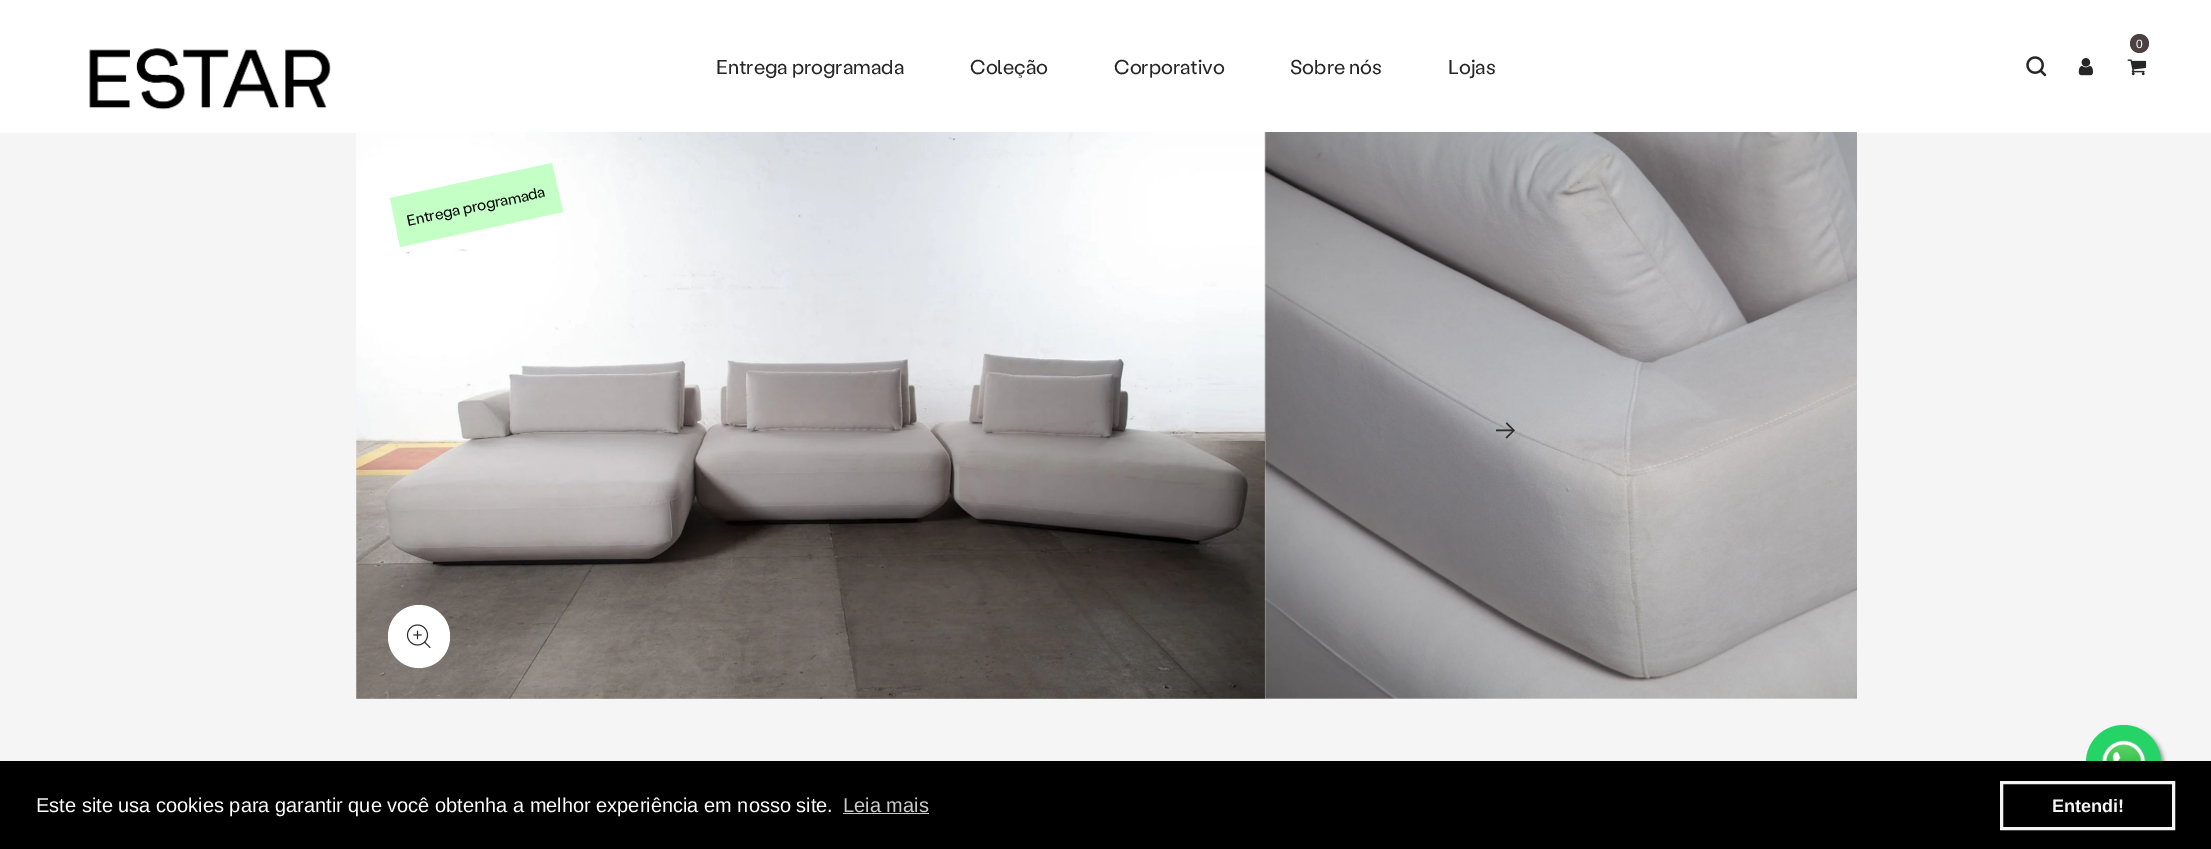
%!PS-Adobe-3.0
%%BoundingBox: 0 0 2211 849
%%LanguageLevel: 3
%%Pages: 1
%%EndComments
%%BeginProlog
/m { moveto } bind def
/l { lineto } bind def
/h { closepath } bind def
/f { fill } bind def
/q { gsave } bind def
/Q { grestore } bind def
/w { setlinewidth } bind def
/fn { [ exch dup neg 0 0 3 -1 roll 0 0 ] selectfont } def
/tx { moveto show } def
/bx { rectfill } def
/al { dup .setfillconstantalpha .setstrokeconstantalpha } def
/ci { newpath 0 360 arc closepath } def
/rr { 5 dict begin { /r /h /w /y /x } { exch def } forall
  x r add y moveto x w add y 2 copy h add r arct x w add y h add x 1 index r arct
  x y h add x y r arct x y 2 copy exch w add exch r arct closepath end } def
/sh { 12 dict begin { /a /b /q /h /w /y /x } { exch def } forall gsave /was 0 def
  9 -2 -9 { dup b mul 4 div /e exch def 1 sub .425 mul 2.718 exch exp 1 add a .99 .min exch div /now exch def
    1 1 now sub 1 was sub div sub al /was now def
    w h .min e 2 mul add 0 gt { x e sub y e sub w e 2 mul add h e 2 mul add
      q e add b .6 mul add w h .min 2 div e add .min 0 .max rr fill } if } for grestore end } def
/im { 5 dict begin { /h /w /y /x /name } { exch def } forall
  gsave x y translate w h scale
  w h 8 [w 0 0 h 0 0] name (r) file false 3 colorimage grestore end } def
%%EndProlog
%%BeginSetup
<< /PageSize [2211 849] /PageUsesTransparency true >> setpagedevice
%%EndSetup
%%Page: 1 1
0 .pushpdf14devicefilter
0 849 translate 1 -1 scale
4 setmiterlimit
1 setgray
0 0 2211 849 bx
0.29 0.255 0.255 setrgbcolor
2139.5 43.5 9.5 ci f
/LiberationSans-Regular 12 fn
1 setgray
(0) 2136 48 tx
(image0.raw) 2127 59 20 17 im
(image1.raw) 2026 56 21 21 im
(image2.raw) 2078 58 15 18 im
(image3.raw) 89 48 242 62 im
/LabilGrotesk-Regular 20 fn
0.149 setgray
(Entrega programada) 716 74 tx
(Coleção) 970 74 tx
(Corporativo) 1114 74 tx
(Sobre nós) 1290 74 tx
(Lojas) 1448 74 tx
0.961 setgray
0 133 2211 628 bx
(image4.raw) 356 132 909 567 im
0.769 1 0.773 setrgbcolor
390 198 m 552 163 l 563 212 l 400 247 l h f
/LabilGrotesk-Regular 15 fn
0 setgray
q 408 226 translate -12 rotate 0 0 m (Entrega programada) show Q
1 setgray
388 605 62 63 31 rr f
(image5.raw) 406 624 25 24 im
(image6.raw) 1264 132 593 567 im
/LabilGrotesk-Regular 25 fn
0.169 0.169 0.173 setrgbcolor
(→) 1495 438 tx
0.6 setgray
2089 728 75 75 37.5 2 1 sh
0.145 0.827 0.4 setrgbcolor
2123.5 762.5 37.5 ci f
0 setgray
0 761 2211 88 bx
/LiberationSans-Regular 20 fn
1 setgray
(Este site usa cookies para garantir que você obtenha a melhor experiência em nosso site.) 36 812 tx
0.8 setgray
(Leia mais) 843 812 tx
843 813 86 1 bx
0.961 setgray
3 w
2001.5 782.5 172 46 rectstroke
/LiberationSans-Bold 18 fn
(Entendi!) 2052 812 tx
(image7.raw) 2101 740 46 21 im
.poppdf14devicefilter showpage
%%EOF
